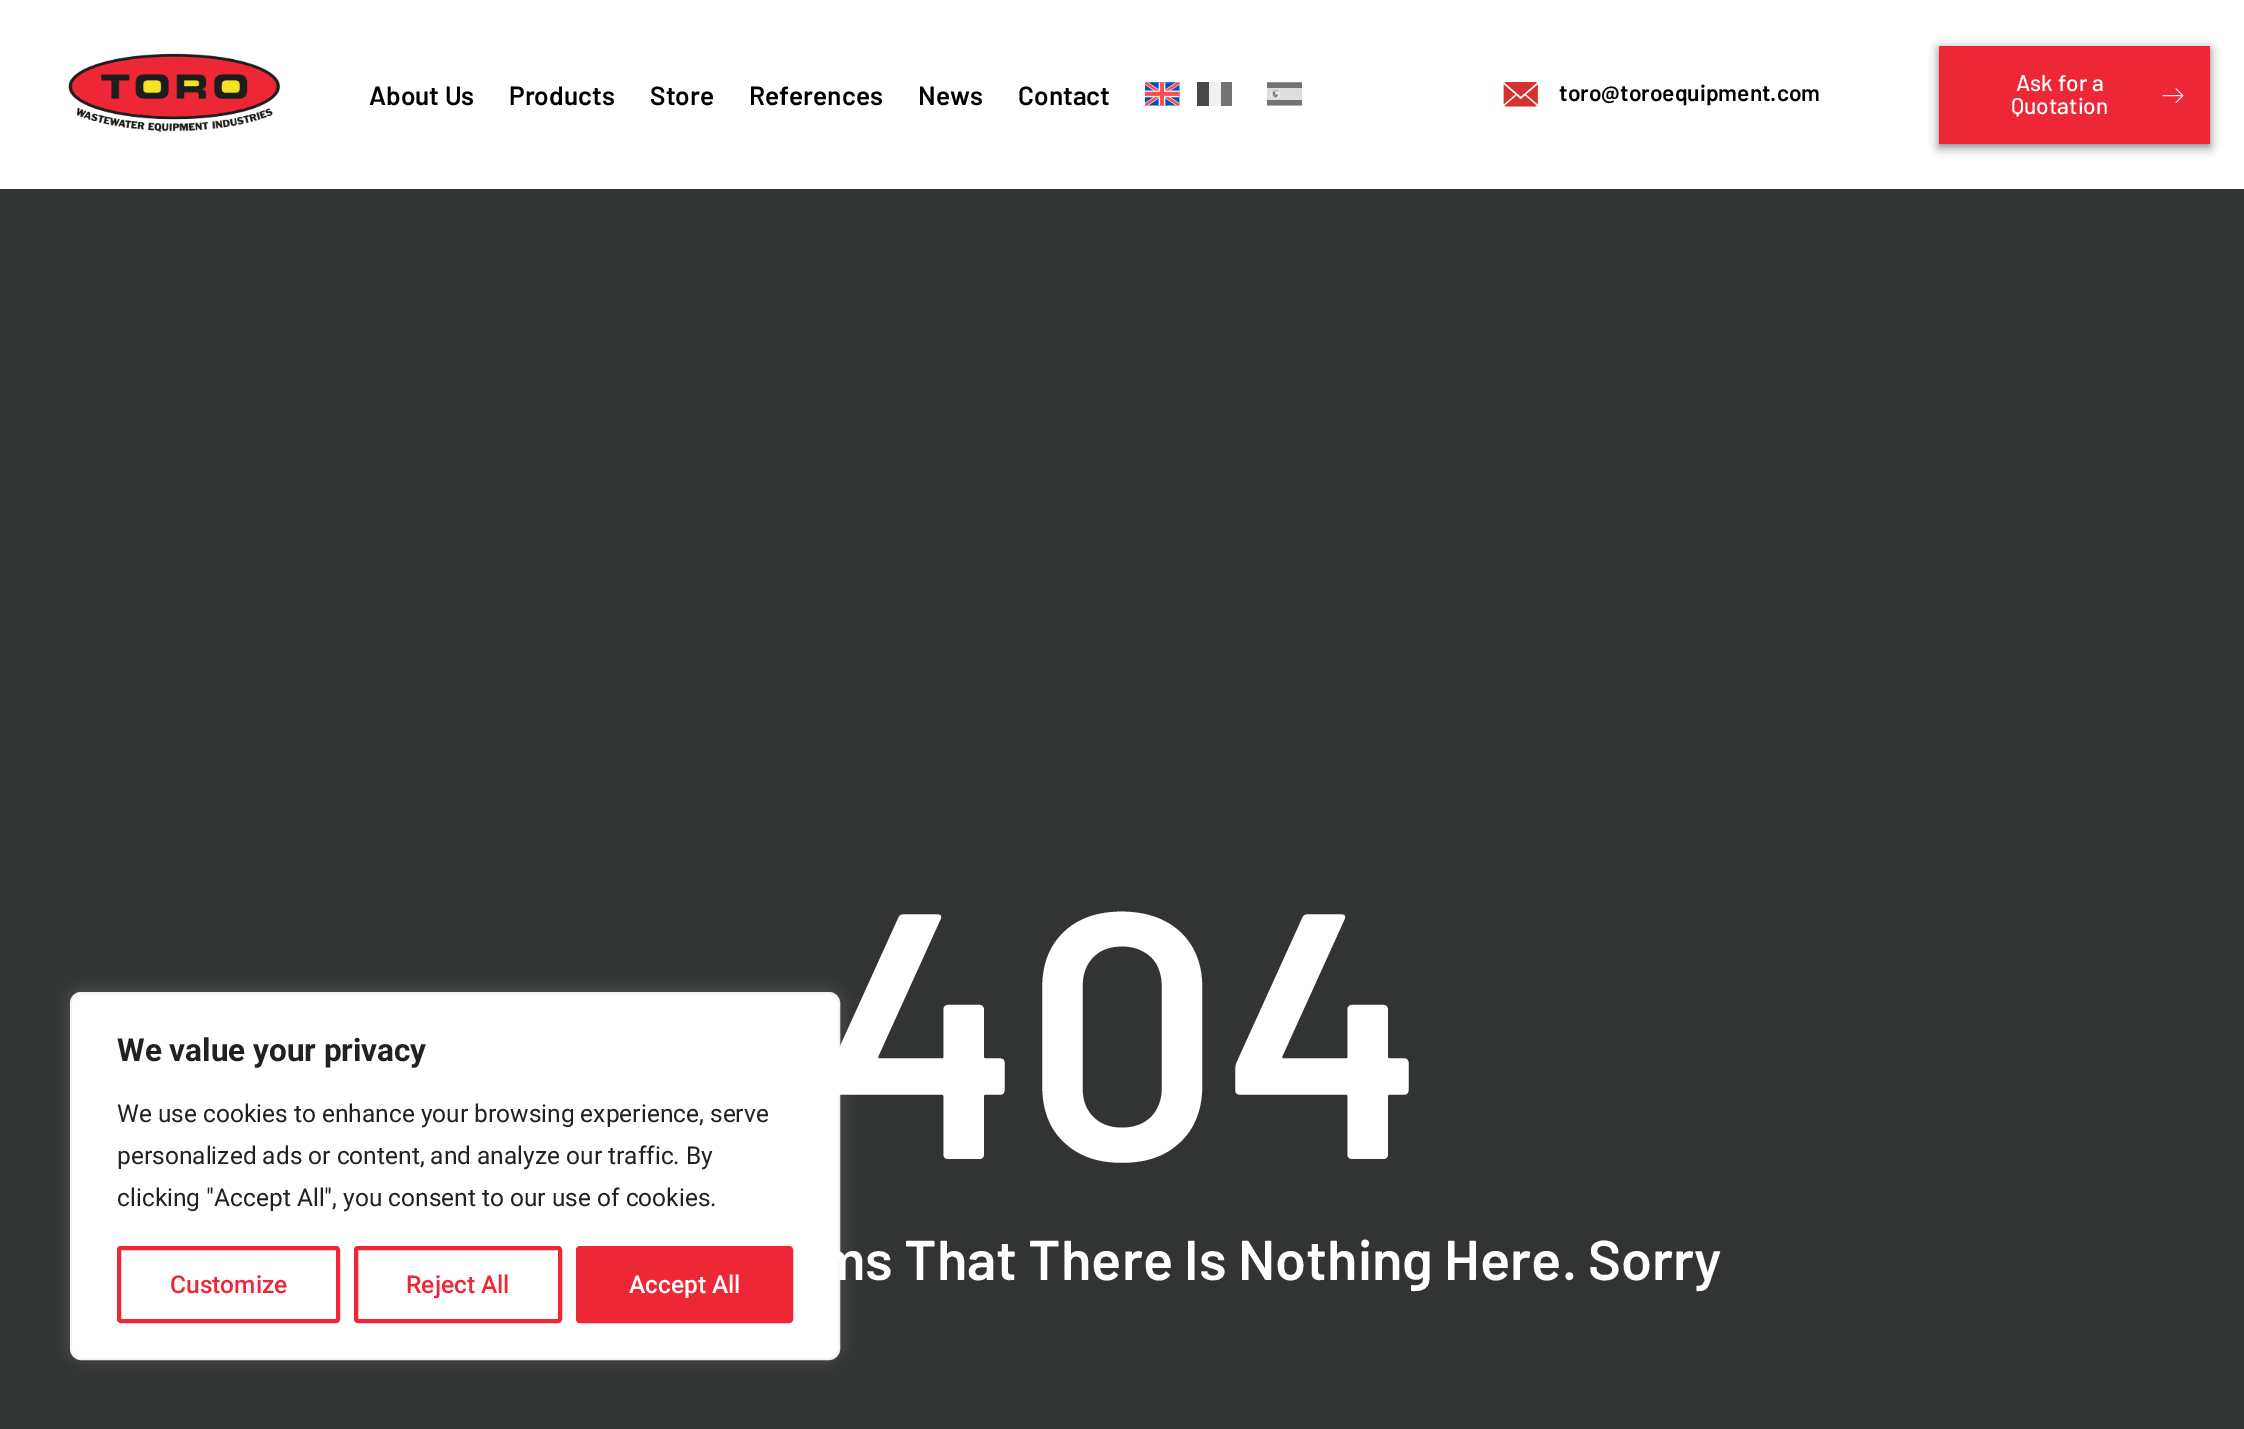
%!PS-Adobe-3.0
%%BoundingBox: 0 0 2244 1429
%%LanguageLevel: 3
%%Pages: 1
%%EndComments
%%BeginProlog
/f { fill } bind def
/S { stroke } bind def
/q { gsave } bind def
/Q { grestore } bind def
/w { setlinewidth } bind def
/fn { [ exch dup neg 0 0 3 -1 roll 0 0 ] selectfont } def
/tx { moveto show } def
/bx { rectfill } def
/al { dup .setfillconstantalpha .setstrokeconstantalpha } def
/rr { 5 dict begin { /r /h /w /y /x } { exch def } forall
  x r add y moveto x w add y 2 copy h add r arct x w add y h add x 1 index r arct
  x y h add x y r arct x y 2 copy exch w add exch r arct closepath end } def
/sh { 12 dict begin { /a /b /q /h /w /y /x } { exch def } forall gsave /was 0 def
  9 -2 -9 { dup b mul 4 div /e exch def 1 sub .425 mul 2.718 exch exp 1 add a .99 .min exch div /now exch def
    1 1 now sub 1 was sub div sub al /was now def
    w h .min e 2 mul add 0 gt { x e sub y e sub w e 2 mul add h e 2 mul add
      q e add b .6 mul add w h .min 2 div e add .min 0 .max rr fill } if } for grestore end } def
/im { 5 dict begin { /h /w /y /x /name } { exch def } forall
  gsave x y translate w h scale
  w h 8 [w 0 0 h 0 0] name (r) file false 3 colorimage grestore end } def
%%EndProlog
%%BeginSetup
<< /PageSize [2244 1429] /PageUsesTransparency true >> setpagedevice
%%EndSetup
%%Page: 1 1
0 .pushpdf14devicefilter
0 1429 translate 1 -1 scale
4 setmiterlimit
1 setgray
0 0 2244 1429 bx
(image0.raw) 68 53 212 79 im
/Barlow-SemiBold 26.25 fn
0 setgray
(About Us) 369 105 tx
(Products) 509 105 tx
(Store) 650 105 tx
(References) 749 105 tx
(News) 918 105 tx
(Contact) 1018 105 tx
(image1.raw) 1145 82 35 24 im
0.941 setgray
1209 82 12 24 bx
0.447 setgray
1221 82 11 24 bx
0.282 setgray
1197 82 12 24 bx
(image2.raw) 1267 82 35 24 im
(image3.raw) 1503 82 35 25 im
/Barlow-SemiBold 22.75 fn
0 setgray
(toro@toroequipment.com) 1559 101 tx
1939 49 271 98 0 5 0.5 sh
0.933 0.153 0.216 setrgbcolor
1939 46 271 98 bx
/Barlow-Medium 22.75 fn
1 setgray
(Ask for a) 2016 91 tx
(Quotation) 2011 114 tx
(image4.raw) 2162 88 22 15 im
0.192 0.204 0.2 setrgbcolor
0 189 2244 1240 bx
0.675 0.671 0.671 setrgbcolor
70 991 770 367 11 9 0.3 sh
1 setgray
71 993 768 366 10 rr q f Q
0.957 setgray
2 w
S
/Roboto-Bold 31.5 fn
0.129 setgray
(We value your privacy) 117 1061 tx
/Roboto-Regular 24.5 fn
(We use cookies to enhance your browsing experience, serve) 117 1122 tx
(personalized ads or content, and analyze our traffic. By) 117 1164 tx
(clicking "Accept All", you consent to our use of cookies.) 117 1206 tx
0.933 0.153 0.216 setrgbcolor
4 w
119 1248 219 73 2 rr S
/Roboto-Medium 24.5 fn
(Customize) 170 1293 tx
356 1248 204 73 2 rr S
(Reject All) 406 1293 tx
578 1248 213 73 2 rr q f Q
S
1 setgray
(Accept All) 629 1293 tx
/Barlow-SemiBold 350 fn
(404) 818 1159 tx
/Barlow-SemiBold 56 fn
(ms That There Is Nothing Here. Sorry) 819 1280 tx
.poppdf14devicefilter showpage
%%EOF
